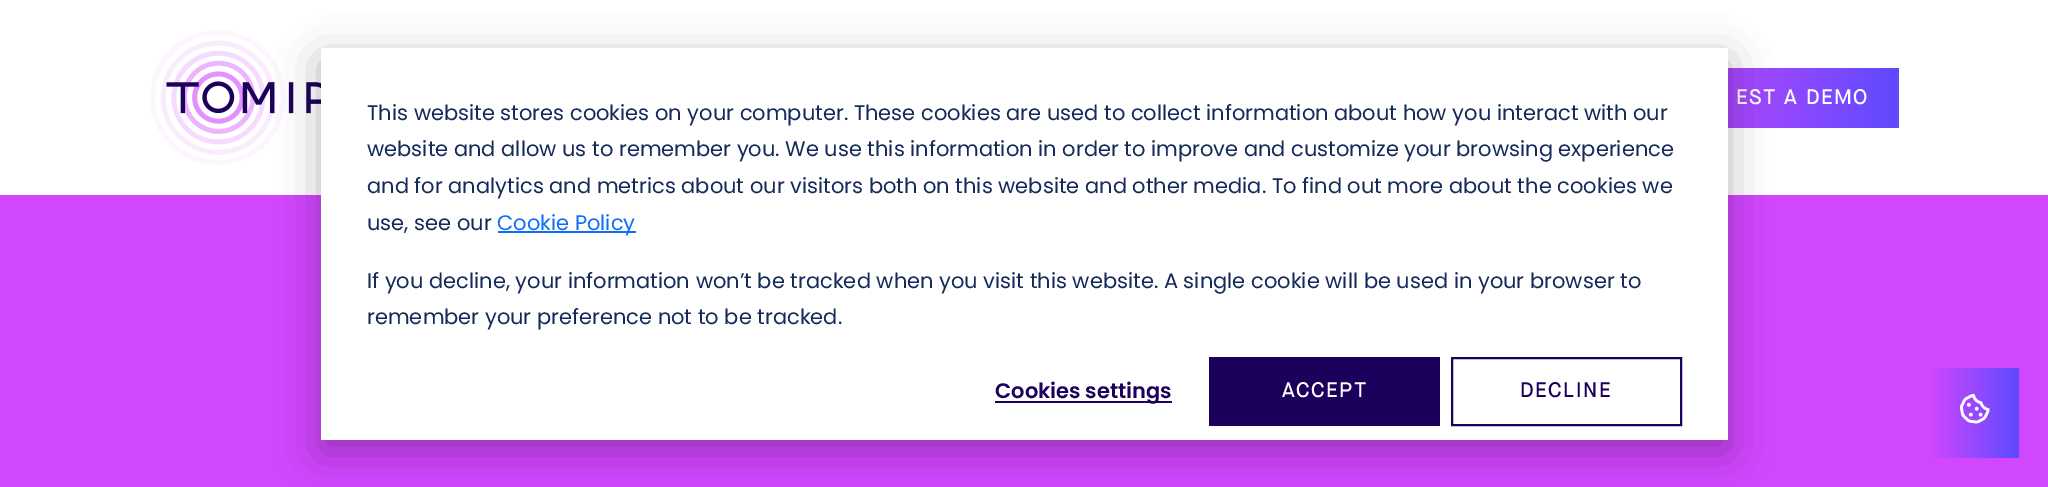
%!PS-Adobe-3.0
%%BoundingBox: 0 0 2048 487
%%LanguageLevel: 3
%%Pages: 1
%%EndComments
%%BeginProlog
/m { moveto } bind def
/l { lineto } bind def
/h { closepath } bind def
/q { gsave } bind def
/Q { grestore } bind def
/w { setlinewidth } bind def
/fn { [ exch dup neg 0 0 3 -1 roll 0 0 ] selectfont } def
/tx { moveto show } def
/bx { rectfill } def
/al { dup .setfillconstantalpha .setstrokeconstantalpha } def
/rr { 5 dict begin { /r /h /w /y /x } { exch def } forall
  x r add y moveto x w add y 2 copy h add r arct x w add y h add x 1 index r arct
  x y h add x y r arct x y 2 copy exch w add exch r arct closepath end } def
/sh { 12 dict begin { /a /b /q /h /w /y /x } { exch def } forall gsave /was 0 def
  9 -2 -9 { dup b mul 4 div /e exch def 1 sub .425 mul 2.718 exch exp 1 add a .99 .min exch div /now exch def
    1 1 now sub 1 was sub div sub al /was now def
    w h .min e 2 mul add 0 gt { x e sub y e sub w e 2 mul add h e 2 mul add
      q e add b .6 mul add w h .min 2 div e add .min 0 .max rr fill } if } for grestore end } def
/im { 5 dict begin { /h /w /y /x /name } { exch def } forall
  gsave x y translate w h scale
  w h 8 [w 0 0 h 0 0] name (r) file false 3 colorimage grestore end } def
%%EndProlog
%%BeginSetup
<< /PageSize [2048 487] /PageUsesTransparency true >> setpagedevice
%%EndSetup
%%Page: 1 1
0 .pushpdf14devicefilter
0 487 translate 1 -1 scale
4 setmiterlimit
1 setgray
0 0 2048 487 bx
(image0.raw) 150 30 171 135 im
q 1728 68 m 1899 68 l 1899 128 l 1728 128 l h clip newpath
<< /ShadingType 2 /ColorSpace /DeviceRGB /Coords [1647 98 1899 98] /Extend [true true] /Function << /FunctionType 2 /Domain [0 1] /C0 [0.82 0.278 0.996] /C1 [0.369 0.29 1] /N 1 >> >> shfill Q
/MaisonNeue-Medium 21 fn
1736 104 m 1.5 0 (EST A DEMO) ashow
0.82 0.278 0.996 setrgbcolor
0 195 2048 292 bx
0 setgray
321 60 1407 392 0 21 0.28 sh
1 setgray
321 48 1407 392 bx
/Poppins-Regular 21 fn
0.082 0.161 0.353 setrgbcolor
(This website stores cookies on your computer. These cookies are used to collect information about how you interact with our) 367 120 tx
(website and allow us to remember you. We use this information in order to improve and customize your browsing experience) 367 156 tx
(and for analytics and metrics about our visitors both on this website and other media. To find out more about the cookies we) 367 193 tx
(use, see our) 367 230 tx
0.051 0.431 0.992 setrgbcolor
498 231 138 2 bx
(Cookie Policy) 497 230 tx
0.082 0.161 0.353 setrgbcolor
(If you decline, your information won’t be tracked when you visit this website. A single cookie will be used in your browser to) 367 288 tx
(remember your preference not to be tracked.) 367 324 tx
0.114 0 0.357 setrgbcolor
995 401 177 2 bx
/Poppins-SemiBold 21 fn
(Cookies settings) 995 398 tx
1209 357 231 69 bx
/MaisonNeue-Medium 21 fn
1 setgray
1282 397 m 1.5 0 (ACCEPT) ashow
0.114 0 0.357 setrgbcolor
2 w
1452 358 229 67 rectstroke
1520 397 m 1.5 0 (DECLINE) ashow
q 1931 368 m 2019 368 l 2019 458 l 1931 458 l h clip newpath
<< /ShadingType 2 /ColorSpace /DeviceRGB /Coords [1929 413 2019 413] /Extend [true true] /Function << /FunctionType 2 /Domain [0 1] /C0 [0.82 0.278 0.996] /C1 [0.369 0.29 1] /N 1 >> >> shfill Q
(image1.raw) 1960 394 30 30 im
.poppdf14devicefilter showpage
%%EOF
